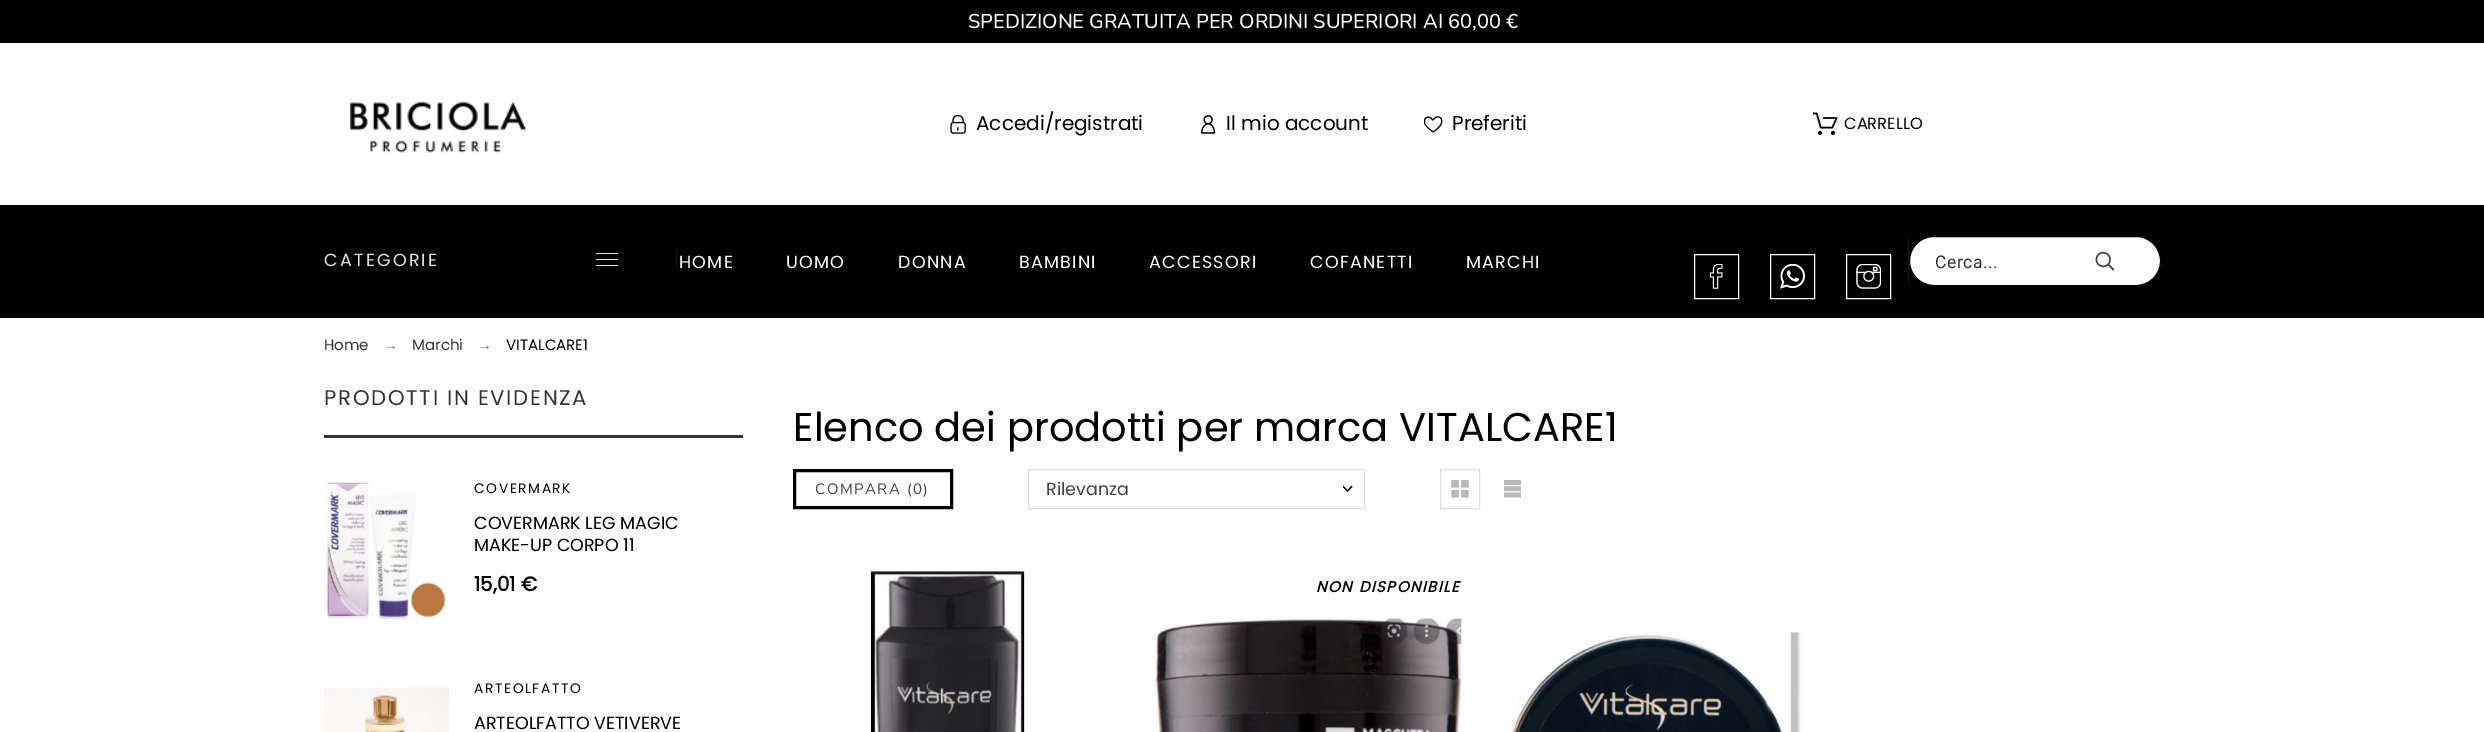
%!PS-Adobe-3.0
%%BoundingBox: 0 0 2484 732
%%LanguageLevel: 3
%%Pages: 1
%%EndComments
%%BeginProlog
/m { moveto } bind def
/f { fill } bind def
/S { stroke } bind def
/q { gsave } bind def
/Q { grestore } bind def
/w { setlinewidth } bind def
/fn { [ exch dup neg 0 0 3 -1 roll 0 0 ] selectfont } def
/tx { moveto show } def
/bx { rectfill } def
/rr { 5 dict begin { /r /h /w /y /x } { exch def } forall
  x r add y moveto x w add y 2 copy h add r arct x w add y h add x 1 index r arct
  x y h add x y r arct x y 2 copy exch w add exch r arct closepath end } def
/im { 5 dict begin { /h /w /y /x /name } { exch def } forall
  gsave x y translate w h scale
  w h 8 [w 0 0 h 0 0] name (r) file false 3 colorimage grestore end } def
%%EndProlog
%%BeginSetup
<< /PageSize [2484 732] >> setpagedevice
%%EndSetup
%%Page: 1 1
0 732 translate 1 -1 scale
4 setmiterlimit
1 setgray
0 0 2484 732 bx
0 setgray
0 0 2484 43 bx
/Nunito-Medium 20 fn
1 setgray
(SPEDIZIONE GRATUITA PER ORDINI SUPERIORI AI 60,00 €) 968 28 tx
(image0.raw) 349 101 178 52 im
(image1.raw) 950 115 16 19 im
/Poppins-Regular 20 fn
0 setgray
(Accedi/registrati) 976 130 tx
(image2.raw) 1201 115 15 19 im
(Il mio account) 1226 130 tx
(image3.raw) 1424 116 19 17 im
(Preferiti) 1452 130 tx
(image4.raw) 1813 112 25 23 im
/Poppins-Regular 16.25 fn
(CARRELLO) 1844 129 tx
0 205 2484 113 bx
0.082 setgray
676 249 1 21 bx
/Poppins-Regular 17.5 fn
0.886 setgray
324 266 m 2.25 0 (CATEGORIE) ashow
596 253 22 1 bx
596 259 22 1 bx
596 265 22 1 bx
1 setgray
679 268 m 1.25 0 (HOME) ashow
786 268 m 1.25 0 (UOMO) ashow
898 268 m 1.25 0 (DONNA) ashow
1019 268 m 1.25 0 (BAMBINI) ashow
1149 268 m 1.25 0 (ACCESSORI) ashow
1310 268 m 1.25 0 (COFANETTI) ashow
1466 268 m 1.25 0 (MARCHI) ashow
1694.5 254.5 44 44 rectstroke
(image5.raw) 1709 264 14 25 im
1770.5 254.5 44 44 rectstroke
(image6.raw) 1780 264 25 25 im
1846.5 254.5 44 44 rectstroke
(image7.raw) 1856 264 25 25 im
0.082 setgray
1908 236 1 50 bx
1 setgray
1909.5 236.5 251 49 24.5 rr q f Q
0 setgray
S
/Roboto-Regular 17.5 fn
0.2 setgray
1935 268 m 0.5 0 (Cerca...) ashow
(image8.raw) 2095 251 20 20 im
/Poppins-Regular 15 fn
(Home) 324 350 tx
/LiberationSerif-Regular 15 fn
0.4 setgray
(→) 383 350 tx
/Poppins-Regular 15 fn
0.2 setgray
(Marchi) 412 350 tx
/LiberationSerif-Regular 15 fn
0.4 setgray
(→) 477 350 tx
/Poppins-Regular 15 fn
0 setgray
(VITALCARE1) 506 350 tx
0.192 0.208 0.216 setrgbcolor
324 435 419 3 bx
/Poppins-Regular 21.25 fn
0.2 setgray
324 405 m 1.7 0 (PRODOTTI IN EVIDENZA) ashow
(image9.raw) 324 481 123 138 im
/Poppins-Regular 13.75 fn
0 setgray
474 493 m 1.6 0 (COVERMARK) ashow
/Poppins-Regular 17.5 fn
(COVERMARK LEG MAGIC) 474 529 tx
(MAKE-UP CORPO 11) 474 551 tx
/Poppins-Bold 20 fn
(15,01 €) 474 591 tx
(image10.raw) 324 687 125 45 im
/Poppins-Regular 13.75 fn
474 693 m 1.6 0 (ARTEOLFATTO) ashow
/Poppins-Regular 17.5 fn
(ARTEOLFATTO VETIVERVE) 474 729 tx
/Poppins-Regular 40 fn
(Elenco dei prodotti per marca VITALCARE1) 793 441 tx
3 w
794.5 470.5 157 37 rectstroke
/Nunito-Regular 15 fn
0.267 setgray
815 494 m 1.5 0 (COMPARA \(0\)) ashow
0.875 setgray
1 w
1028.5 469.5 336 39 rectstroke
/Poppins-Regular 17.5 fn
0.267 setgray
(Rilevanza) 1046 495 tx
(image11.raw) 1343 485 10 7 im
0.875 setgray
1440.5 469.5 39 39 rectstroke
(image12.raw) 1451 480 18 18 im
(image13.raw) 1504 480 17 18 im
(image14.raw) 870 571 155 161 im
/Poppins-BoldItalic 15 fn
0 setgray
1316 592 m 1.5 0 (NON DISPONIBILE) ashow
(image15.raw) 1152 617 310 115 im
(image16.raw) 1511 632 291 100 im
showpage
%%EOF
